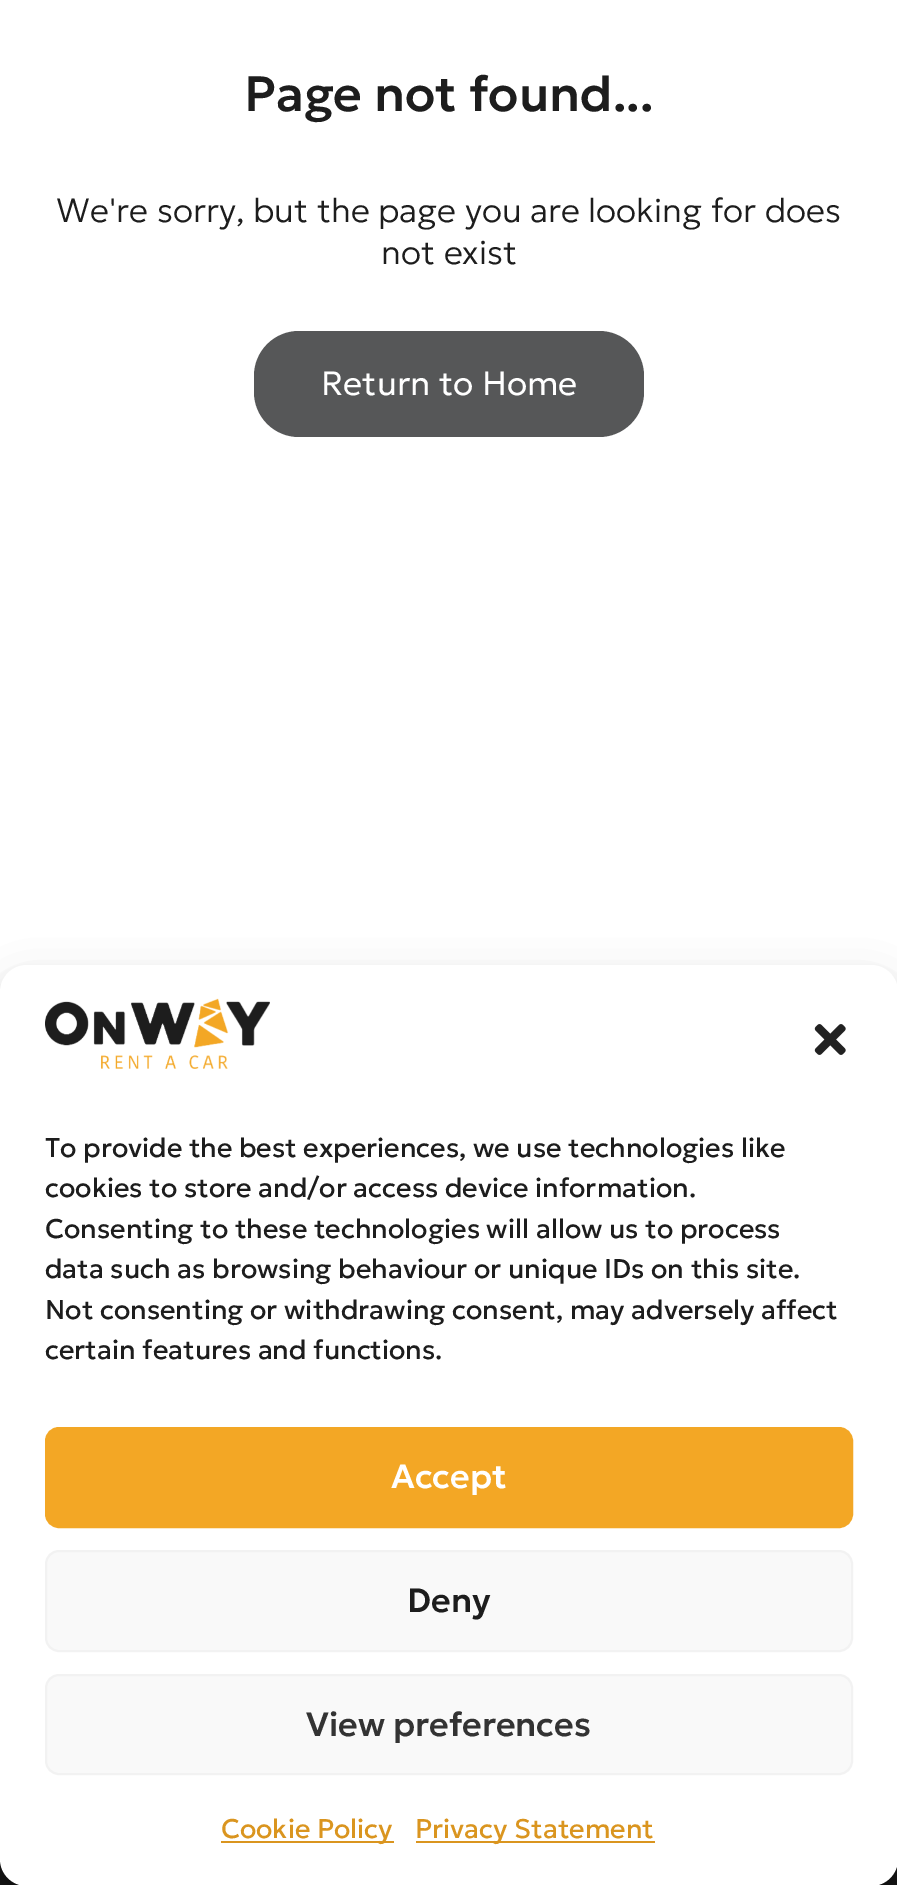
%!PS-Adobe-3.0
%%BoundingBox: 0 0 897 1885
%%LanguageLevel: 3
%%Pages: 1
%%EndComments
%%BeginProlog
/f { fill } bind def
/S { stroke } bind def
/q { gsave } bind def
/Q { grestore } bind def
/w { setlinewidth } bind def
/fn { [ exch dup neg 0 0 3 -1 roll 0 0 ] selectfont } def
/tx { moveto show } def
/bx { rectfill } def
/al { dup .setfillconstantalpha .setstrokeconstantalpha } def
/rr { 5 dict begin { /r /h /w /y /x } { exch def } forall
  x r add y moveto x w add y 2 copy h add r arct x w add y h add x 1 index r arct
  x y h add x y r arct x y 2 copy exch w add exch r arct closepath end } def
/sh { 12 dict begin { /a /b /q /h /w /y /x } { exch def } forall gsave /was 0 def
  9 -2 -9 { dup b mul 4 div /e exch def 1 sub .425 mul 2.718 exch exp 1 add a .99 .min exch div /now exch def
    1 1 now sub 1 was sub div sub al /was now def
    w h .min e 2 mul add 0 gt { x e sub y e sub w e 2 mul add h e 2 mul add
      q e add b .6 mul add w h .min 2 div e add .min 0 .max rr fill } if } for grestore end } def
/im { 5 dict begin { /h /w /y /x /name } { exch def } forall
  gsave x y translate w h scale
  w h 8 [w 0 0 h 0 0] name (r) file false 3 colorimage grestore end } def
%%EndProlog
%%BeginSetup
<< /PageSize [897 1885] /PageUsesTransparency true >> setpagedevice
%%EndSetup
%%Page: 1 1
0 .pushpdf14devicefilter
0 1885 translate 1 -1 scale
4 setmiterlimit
1 setgray
0 0 897 1885 bx
/Geologica-Medium 49.5 fn
0.114 setgray
(Page not found...) 244 111 tx
/Geologica-ExtraLight 33.75 fn
(We're sorry, but the page you are looking for does) 56 222 tx
(not exist) 381 264 tx
0.337 0.341 0.345 setrgbcolor
254 331 390 106 45 rr f
/Geologica-Light 33.75 fn
1 setgray
(Return to Home) 321 395 tx
0.086 setgray
0 1859 897 26 bx
0 setgray
0 979 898 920 27 7 0.23 sh
0 988 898 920 27 22.5 0.19 sh
1 setgray
0 965 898 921 27 rr f
(image0.raw) 45 998 225 71 im
(image1.raw) 814 1024 32 31 im
/Geologica-Regular 27 fn
0.114 setgray
(To provide the best experiences, we use technologies like) 45 1157 tx
(cookies to store and/or access device information.) 45 1197 tx
(Consenting to these technologies will allow us to process) 45 1238 tx
(data such as browsing behaviour or unique IDs on this site.) 45 1278 tx
(Not consenting or withdrawing consent, may adversely affect) 45 1319 tx
(certain features and functions.) 45 1359 tx
0.953 0.655 0.145 setrgbcolor
46 1428 806 99 13 rr q f Q
2 w
S
/Geologica-Medium 33.75 fn
1 setgray
(Accept) 391 1488 tx
0.976 setgray
46 1551 806 100 13 rr q f Q
0.949 setgray
S
0.114 setgray
(Deny) 407 1612 tx
0.976 setgray
46 1675 806 99 13 rr q f Q
0.949 setgray
S
0.2 setgray
(View preferences) 306 1736 tx
0.855 0.584 0.122 setrgbcolor
221 1841 173 2 bx
/Geologica-Regular 27 fn
(Cookie Policy) 221 1838 tx
416 1841 239 2 bx
(Privacy Statement) 415 1838 tx
.poppdf14devicefilter showpage
%%EOF
